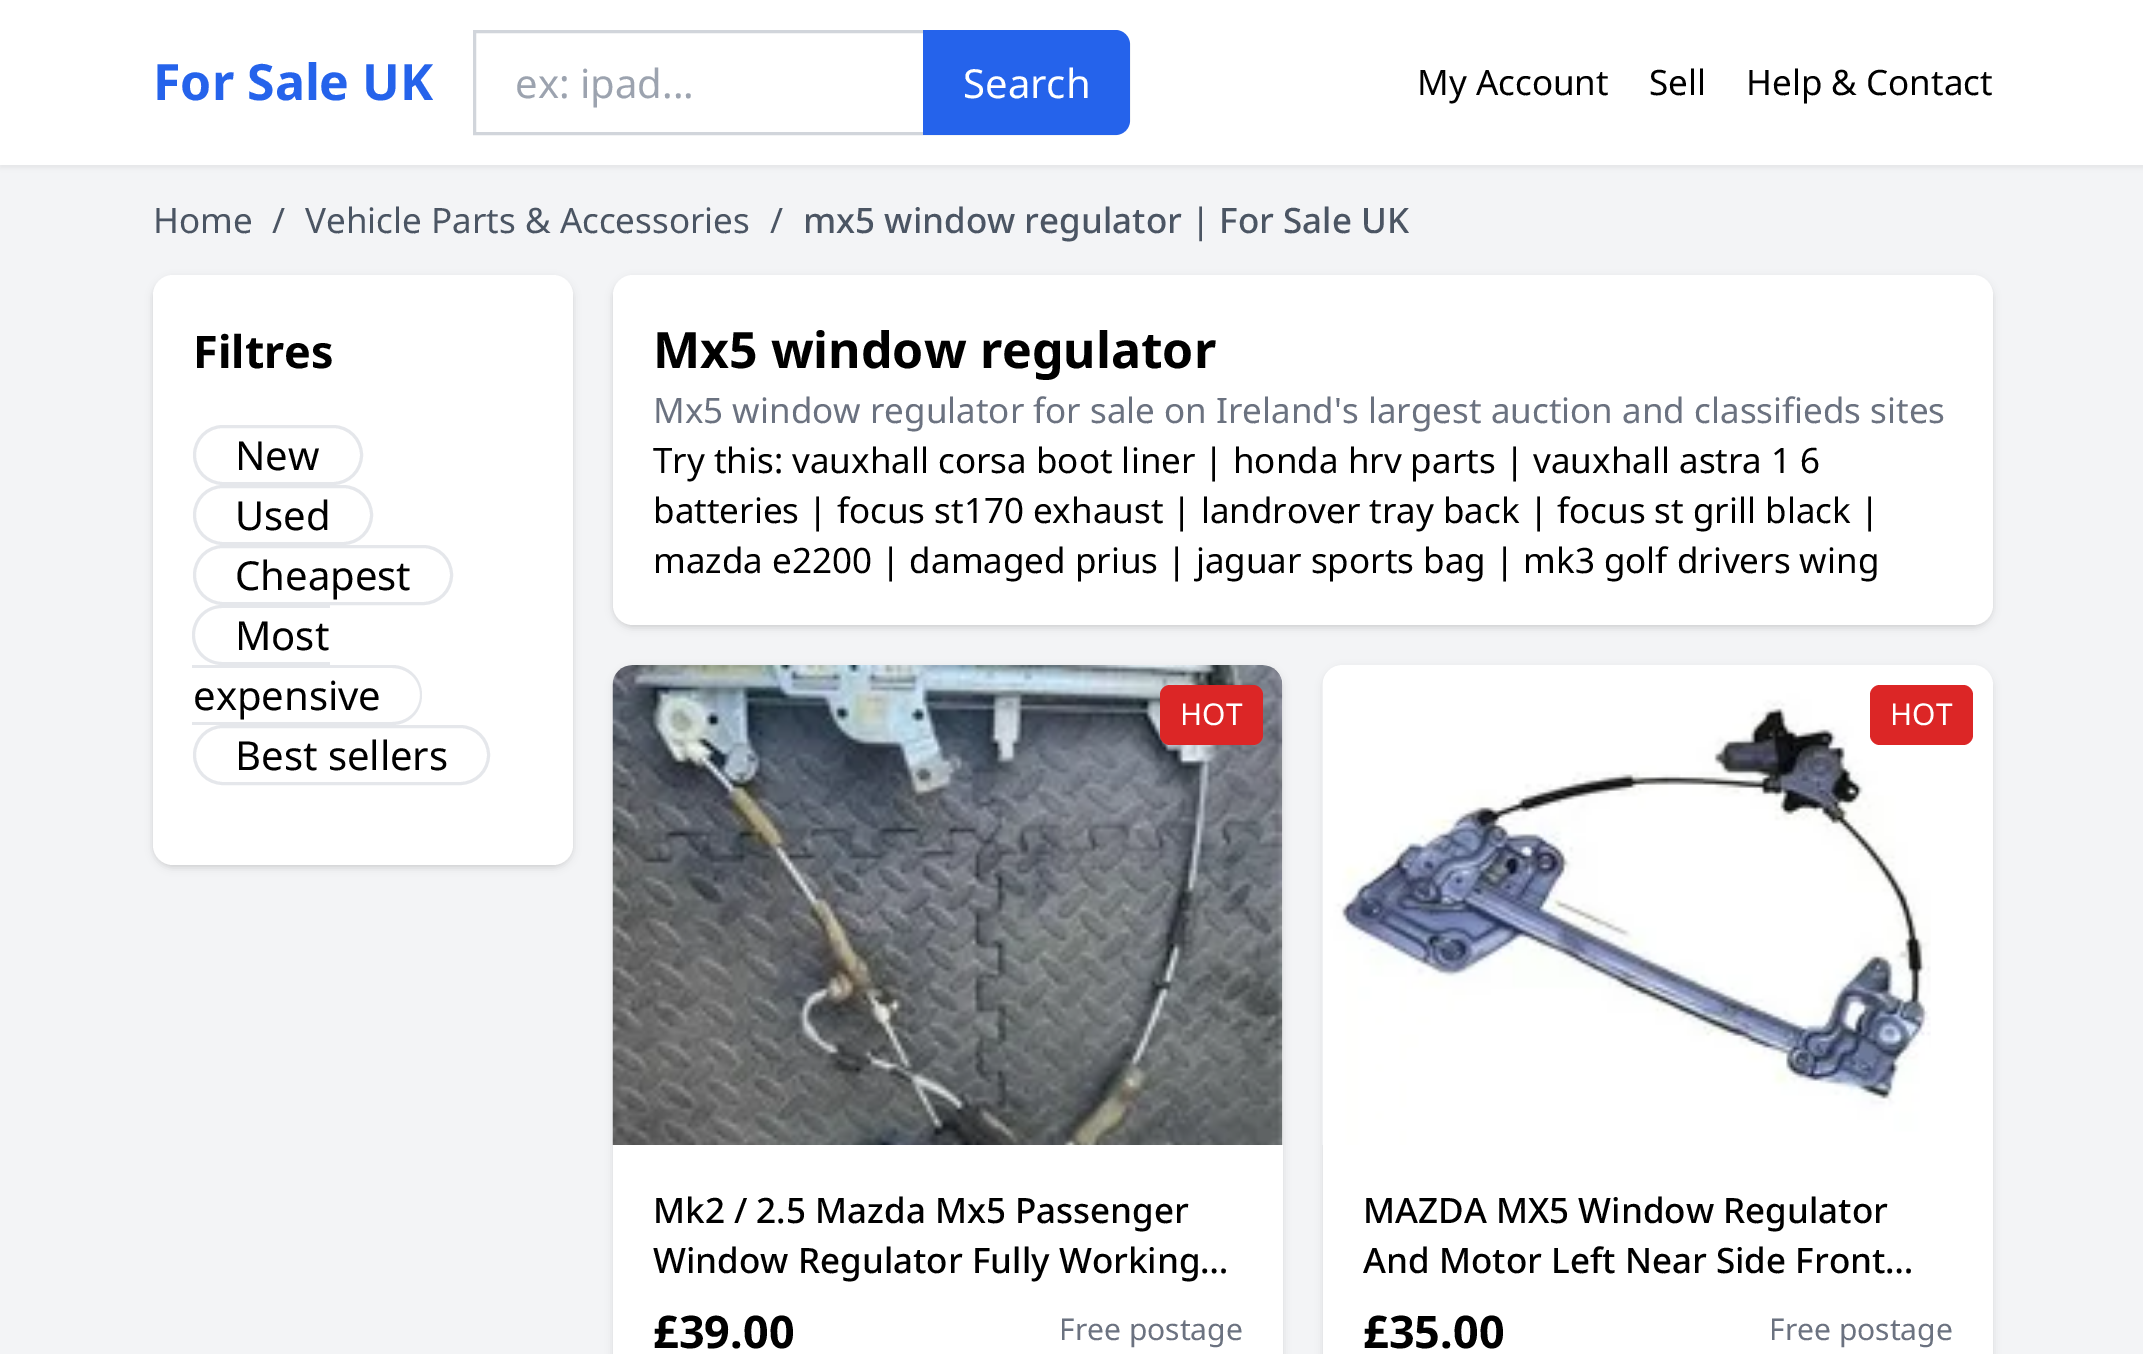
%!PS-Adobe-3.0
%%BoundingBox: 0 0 2143 1354
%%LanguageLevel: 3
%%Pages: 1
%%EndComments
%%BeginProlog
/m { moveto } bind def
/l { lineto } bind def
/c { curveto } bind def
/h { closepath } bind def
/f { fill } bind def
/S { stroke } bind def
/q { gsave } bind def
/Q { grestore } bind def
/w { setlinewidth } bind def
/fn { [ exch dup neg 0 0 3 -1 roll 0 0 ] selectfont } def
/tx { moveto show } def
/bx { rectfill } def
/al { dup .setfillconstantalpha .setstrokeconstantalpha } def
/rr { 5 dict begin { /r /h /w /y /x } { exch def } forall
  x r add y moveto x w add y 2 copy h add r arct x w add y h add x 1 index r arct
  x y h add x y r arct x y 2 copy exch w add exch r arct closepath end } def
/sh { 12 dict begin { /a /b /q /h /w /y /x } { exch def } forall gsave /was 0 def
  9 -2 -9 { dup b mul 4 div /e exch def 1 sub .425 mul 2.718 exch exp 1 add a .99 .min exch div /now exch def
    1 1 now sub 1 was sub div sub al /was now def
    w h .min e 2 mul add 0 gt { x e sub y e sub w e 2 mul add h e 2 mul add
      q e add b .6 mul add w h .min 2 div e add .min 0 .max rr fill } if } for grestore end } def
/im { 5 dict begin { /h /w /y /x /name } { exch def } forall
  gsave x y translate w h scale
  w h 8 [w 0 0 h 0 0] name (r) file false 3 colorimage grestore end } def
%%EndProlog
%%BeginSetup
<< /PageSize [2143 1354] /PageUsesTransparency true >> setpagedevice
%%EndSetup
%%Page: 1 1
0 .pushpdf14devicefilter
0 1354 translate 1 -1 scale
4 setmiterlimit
0.953 0.957 0.965 setrgbcolor
0 0 2143 1354 bx
0 setgray
0 3 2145 165 0 2.5 0.05 sh
1 setgray
0 0 2143 165 bx
/NotoSans-Bold 50 fn
0.145 0.388 0.922 setrgbcolor
(For Sale UK) 153 100 tx
0.82 0.835 0.859 setrgbcolor
3 w
474.5 31.5 m 1115 31.5 l 1122.5 31.5 1128.5 37.5 1128.5 45 c 1128.5 120 l 1128.5 127.5 1122.5 133.5 1115 133.5 c 474.5 133.5 l h S
/NotoSans-Regular 40 fn
0.612 0.639 0.686 setrgbcolor
(ex: ipad...) 515 98 tx
0.145 0.388 0.922 setrgbcolor
923 30 m 1115 30 l 1123.5 30 1130 36.5 1130 45 c 1130 120 l 1130 128.5 1123.5 135 1115 135 c 923 135 l h f
1 setgray
(Search) 963 98 tx
/NotoSans-Regular 35 fn
0 setgray
(My Account) 1417 95 tx
(Sell) 1649 95 tx
(Help & Contact) 1746 95 tx
0.294 0.333 0.388 setrgbcolor
(Home) 153 233 tx
(/) 272 233 tx
(Vehicle Parts & Accessories) 305 233 tx
(/) 770 233 tx
/NotoSans-Medium 35 fn
(mx5 window regulator | For Sale UK) 803 233 tx
0 setgray
155 280 415 585 18 2.5 0.1 sh
153 278 420 590 20 4 0.1 sh
1 setgray
153 275 420 590 20 rr f
/NotoSans-Bold 45 fn
0 setgray
(Filtres) 193 368 tx
0.898 0.906 0.922 setrgbcolor
194.5 426.5 167 57 28.5 rr S
/NotoSans-Regular 40 fn
0 setgray
(New) 235 470 tx
0.898 0.906 0.922 setrgbcolor
194.5 486.5 177 57 28.5 rr S
0 setgray
(Used) 235 530 tx
0.898 0.906 0.922 setrgbcolor
194.5 546.5 257 57 28.5 rr S
0 setgray
(Cheapest) 235 590 tx
0.898 0.906 0.922 setrgbcolor
222 605 m 330 605 l 330 665 l 222 665 l 206 665 192 652 192 635 c 192 618 206 605 222 605 c h 222 608 m 330 608 l 330 662 l 222 662 l 207 662 195 650 195 635 c 195 620 207 608 222 608 c h eofill
0 setgray
(Most) 235 650 tx
0.898 0.906 0.922 setrgbcolor
192 665 m 392 665 l 409 665 422 678 422 695 c 422 712 409 725 392 725 c 192 725 l h 192 668 m 392 668 l 408 668 420 680 420 695 c 420 710 408 722 392 722 c 192 722 l h eofill
0 setgray
(expensive) 193 710 tx
0.898 0.906 0.922 setrgbcolor
194.5 726.5 294 57 28.5 rr S
0 setgray
(Best sellers) 235 770 tx
615 280 1375 345 18 2.5 0.1 sh
613 278 1380 350 20 4 0.1 sh
1 setgray
613 275 1380 350 20 rr f
/NotoSans-Bold 50 fn
0 setgray
(Mx5 window regulator) 653 368 tx
/NotoSans-Regular 35 fn
0.42 0.447 0.502 setrgbcolor
(Mx5 window regulator for sale on Ireland's largest auction and classifieds sites) 653 423 tx
q
653 435 1300 150 rectclip
0 setgray
(Try this:) 653 473 tx
Q
0 setgray
(vauxhall corsa boot liner | honda hrv parts | vauxhall astra 1 6) 792 473 tx
(batteries | focus st170 exhaust | landrover tray back | focus st grill black |) 653 523 tx
(mazda e2200 | damaged prius | jaguar sports bag | mk3 golf drivers wing) 653 573 tx
613 668 670 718 20 4 0.1 sh
1 setgray
613 665 670 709 20 rr f
(image0.raw) 612 665 671 480 im
0.863 0.149 0.149 setrgbcolor
1160 685 103 60 10 rr f
/NotoSans-Regular 30 fn
1 setgray
(HOT) 1180 725 tx
/NotoSans-Medium 35 fn
0 setgray
(Mk2 / 2.5 Mazda Mx5 Passenger) 653 1223 tx
(Window Regulator Fully Working…) 653 1273 tx
/NotoSans-Bold 45 fn
(£39.00) 653 1348 tx
/NotoSans-Regular 30 fn
0.42 0.447 0.502 setrgbcolor
(Free postage) 1059 1340 tx
0 setgray
1323 668 670 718 20 4 0.1 sh
1 setgray
1323 665 670 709 20 rr f
(image1.raw) 1322 666 609 479 im
0.863 0.149 0.149 setrgbcolor
1870 685 103 60 10 rr f
1 setgray
(HOT) 1890 725 tx
/NotoSans-Medium 35 fn
0 setgray
(MAZDA MX5 Window Regulator) 1363 1223 tx
(And Motor Left Near Side Front…) 1363 1273 tx
/NotoSans-Bold 45 fn
(£35.00) 1363 1348 tx
/NotoSans-Regular 30 fn
0.42 0.447 0.502 setrgbcolor
(Free postage) 1769 1340 tx
.poppdf14devicefilter showpage
%%EOF
